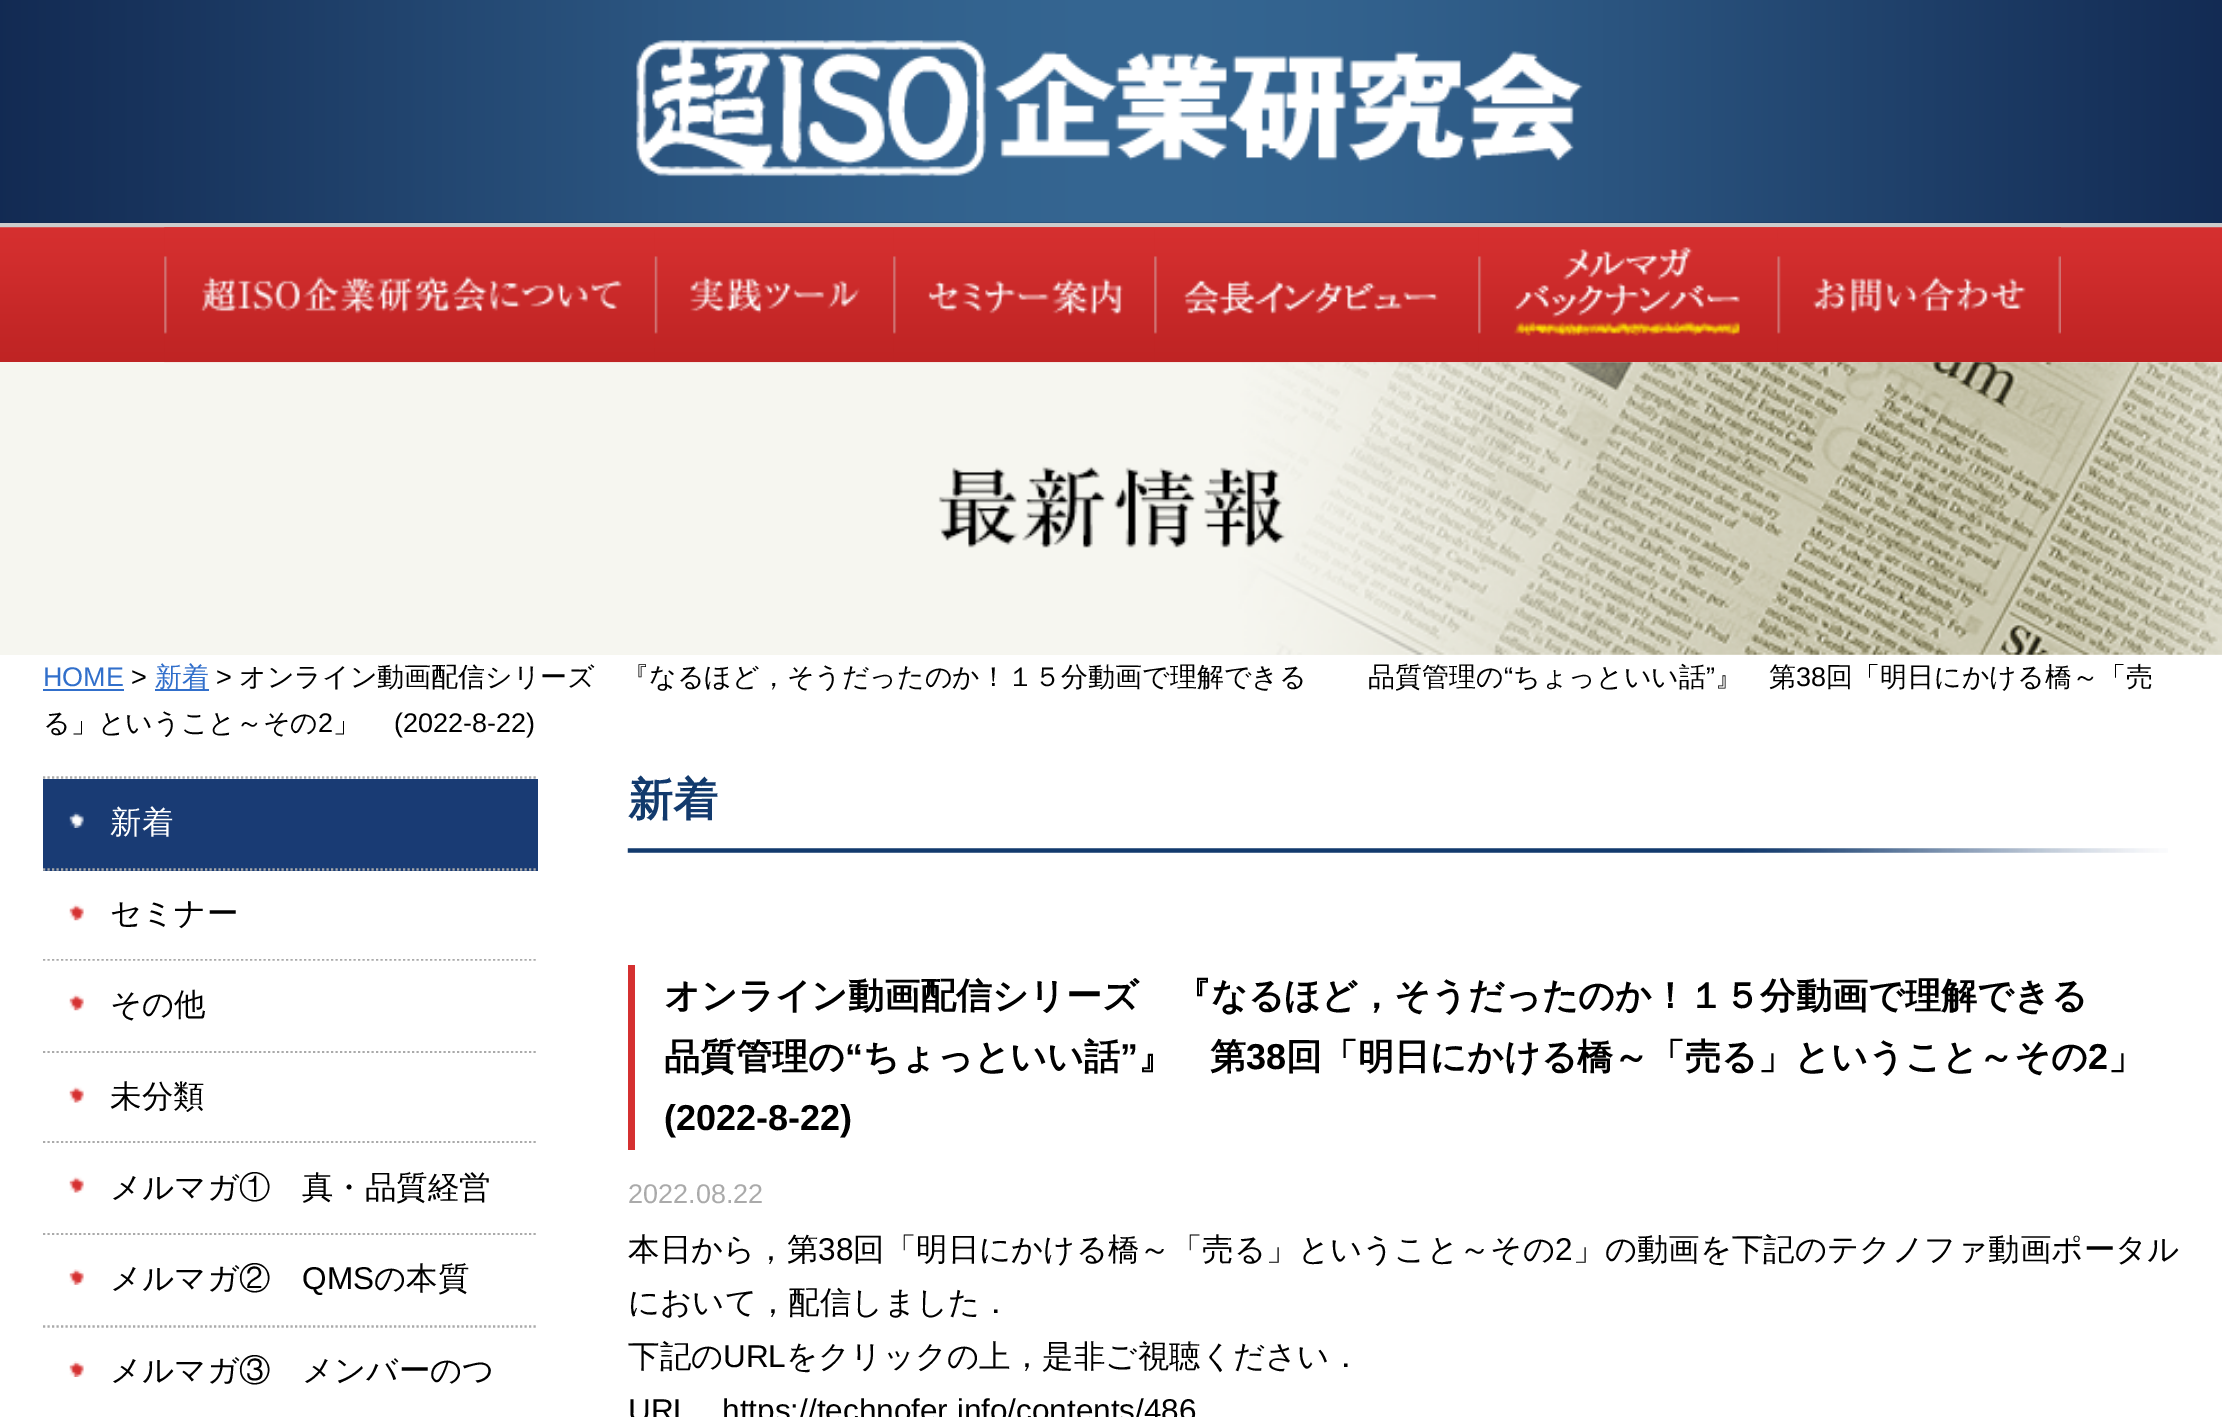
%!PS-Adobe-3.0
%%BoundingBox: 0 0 2222 1417
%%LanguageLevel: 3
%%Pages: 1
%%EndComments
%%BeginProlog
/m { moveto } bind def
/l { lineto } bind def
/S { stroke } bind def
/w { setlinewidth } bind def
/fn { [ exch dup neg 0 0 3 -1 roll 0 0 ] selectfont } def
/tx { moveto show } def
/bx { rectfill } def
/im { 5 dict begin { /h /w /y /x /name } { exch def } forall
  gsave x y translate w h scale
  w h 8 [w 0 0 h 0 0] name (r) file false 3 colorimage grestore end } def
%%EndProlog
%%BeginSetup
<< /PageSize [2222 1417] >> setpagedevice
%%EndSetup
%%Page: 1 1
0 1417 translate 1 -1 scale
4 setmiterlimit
1 setgray
0 0 2222 1417 bx
0.8 setgray
0 222 2222 6 bx
(image0.raw) 0 0 2222 223 im
(image1.raw) 0 227 2222 135 im
0.965 0.965 0.941 setrgbcolor
0 362 2222 293 bx
(image2.raw) 164 227 491 136 im
(image3.raw) 654 227 240 136 im
(image4.raw) 893 227 262 136 im
(image5.raw) 1154 227 325 136 im
(image6.raw) 1478 227 300 136 im
(image7.raw) 1777 227 284 136 im
(image8.raw) 164 362 2058 293 im
/LiberationSans-Regular 27 fn
0.192 0.435 0.796 setrgbcolor
(HOME) 43 686 tx
43 689 81 2 bx
0 setgray
(>) 131 686 tx
0.192 0.435 0.796 setrgbcolor
155 689 54 2 bx
/WenQuanYiZenHei-Medium 27 fn
(新着) 155 686 tx
/LiberationSans-Regular 27 fn
0 setgray
(>) 216 686 tx
/WenQuanYiZenHei-Medium 27 fn
239 686 m -1 0 32 (オンライン動画配信シリーズ　『なるほど，そうだったのか！１５分動画で理解できる　 　品質管理の) widthshow
/LiberationSans-Regular 27 fn
(“) 1504 686 tx
/WenQuanYiZenHei-Medium 27 fn
(ちょっといい話) 1513 686 tx
/LiberationSans-Regular 27 fn
(”) 1706 686 tx
/WenQuanYiZenHei-Medium 27 fn
(』　第) 1715 686 tx
/LiberationSans-Regular 27 fn
(38) 1796 686 tx
/WenQuanYiZenHei-Medium 27 fn
(回「明日にかける橋～「売) 1826 686 tx
(る」ということ～その) 43 732 tx
/LiberationSans-Regular 27 fn
(2) 318 732 tx
/WenQuanYiZenHei-Medium 27 fn
(」) 333 732 tx
/LiberationSans-Regular 27 fn
(\(2022-8-22\)) 394 732 tx
0.667 setgray
2.2 w
[2.25 2.25] 0 setdash
43 777.5 m 538 777.5 l S
0.098 0.231 0.455 setrgbcolor
43 779 495 92 bx
(image9.raw) 69 812 15 16 im
0.667 setgray
43 869.5 m 538 869.5 l S
/WenQuanYiZenHei-Medium 31.5 fn
1 setgray
(新着) 110 833 tx
0.667 setgray
43 959.5 m 538 959.5 l S
1 setgray
43 958 493 1 bx
(image10.raw) 69 904 15 17 im
0 setgray
(セミナー) 110 924 tx
0.667 setgray
43 1052 m 538 1052 l S
1 setgray
43 1050 493 1 bx
(image10.raw) 69 994 15 17 im
0 setgray
(その他) 110 1015 tx
0.667 setgray
43 1142 m 538 1142 l S
1 setgray
43 1053 493 88 bx
(image11.raw) 69 1086 15 17 im
0 setgray
(未分類) 110 1107 tx
0.667 setgray
43 1234 m 538 1234 l S
1 setgray
43 1143 493 90 bx
(image11.raw) 69 1176 15 17 im
0 setgray
(メルマガ①　真・品質経営) 110 1198 tx
0.667 setgray
43 1326.5 m 538 1326.5 l S
1 setgray
43 1235 493 1 bx
(image12.raw) 69 1269 15 16 im
0 setgray
(メルマガ②) 110 1289 tx
/LiberationSans-Regular 31.5 fn
(QMS) 302 1289 tx
/WenQuanYiZenHei-Medium 31.5 fn
(の本質) 374 1289 tx
(image13.raw) 69 1361 15 16 im
(メルマガ③　メンバーのつ) 110 1381 tx
(image14.raw) 627 848 1541 5 im
/WenQuanYiZenHei-Bold 45 fn
0.071 0.227 0.427 setrgbcolor
(新着) 628 815 tx
0.835 0.188 0.188 setrgbcolor
628 965 7 185 bx
/WenQuanYiZenHei-Bold 36 fn
0 setgray
(オンライン動画配信シリーズ　『なるほど，そうだったのか！１５分動画で理解できる) 664 1008 tx
(品質管理の) 664 1069 tx
/LiberationSans-Bold 36 fn
(“) 845 1069 tx
/WenQuanYiZenHei-Bold 36 fn
(ちょっといい話) 863 1069 tx
/LiberationSans-Bold 36 fn
(”) 1120 1069 tx
/WenQuanYiZenHei-Bold 36 fn
(』　第) 1138 1069 tx
/LiberationSans-Bold 36 fn
(38) 1246 1069 tx
/WenQuanYiZenHei-Bold 36 fn
(回「明日にかける橋～「売る」ということ～その) 1286 1069 tx
/LiberationSans-Bold 36 fn
(2) 2088 1069 tx
/WenQuanYiZenHei-Bold 36 fn
(」) 2108 1069 tx
/LiberationSans-Bold 36 fn
(\(2022-8-22\)) 664 1130 tx
/LiberationSans-Regular 27 fn
0.667 setgray
(2022.08.22) 628 1203 tx
/WenQuanYiZenHei-Medium 31.5 fn
0 setgray
(本日から，第) 628 1260 tx
/LiberationSans-Regular 31.5 fn
(38) 818 1260 tx
/WenQuanYiZenHei-Medium 31.5 fn
(回「明日にかける橋～「売る」ということ～その) 853 1260 tx
/LiberationSans-Regular 31.5 fn
(2) 1555 1260 tx
/WenQuanYiZenHei-Medium 31.5 fn
(」の動画を下記のテクノファ動画ポータル) 1573 1260 tx
(において，配信しました．) 628 1313 tx
(下記の) 628 1367 tx
/LiberationSans-Regular 31.5 fn
(URL) 723 1367 tx
/WenQuanYiZenHei-Medium 31.5 fn
(をクリックの上，是非ご視聴ください．) 786 1367 tx
/LiberationSans-Regular 31.5 fn
(URL) 628 1421 tx
(https://technofer.info/contents/486) 722 1421 tx
showpage
%%EOF
